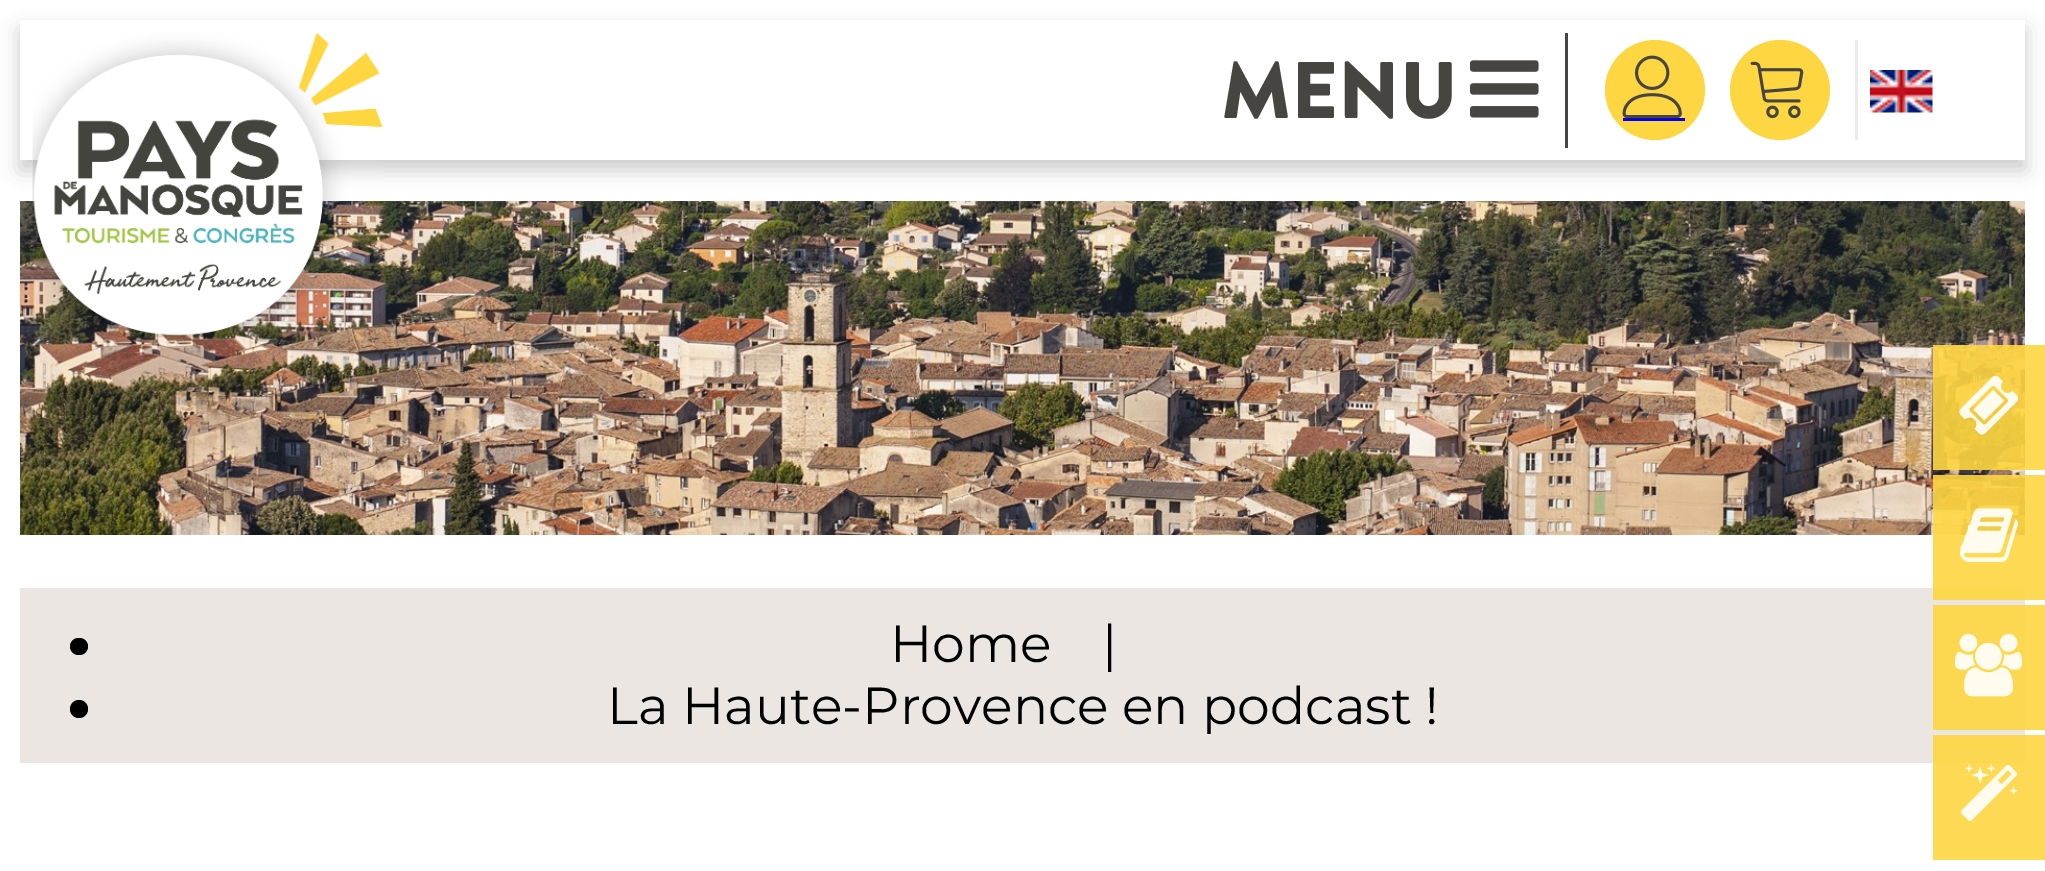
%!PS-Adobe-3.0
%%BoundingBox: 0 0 2045 871
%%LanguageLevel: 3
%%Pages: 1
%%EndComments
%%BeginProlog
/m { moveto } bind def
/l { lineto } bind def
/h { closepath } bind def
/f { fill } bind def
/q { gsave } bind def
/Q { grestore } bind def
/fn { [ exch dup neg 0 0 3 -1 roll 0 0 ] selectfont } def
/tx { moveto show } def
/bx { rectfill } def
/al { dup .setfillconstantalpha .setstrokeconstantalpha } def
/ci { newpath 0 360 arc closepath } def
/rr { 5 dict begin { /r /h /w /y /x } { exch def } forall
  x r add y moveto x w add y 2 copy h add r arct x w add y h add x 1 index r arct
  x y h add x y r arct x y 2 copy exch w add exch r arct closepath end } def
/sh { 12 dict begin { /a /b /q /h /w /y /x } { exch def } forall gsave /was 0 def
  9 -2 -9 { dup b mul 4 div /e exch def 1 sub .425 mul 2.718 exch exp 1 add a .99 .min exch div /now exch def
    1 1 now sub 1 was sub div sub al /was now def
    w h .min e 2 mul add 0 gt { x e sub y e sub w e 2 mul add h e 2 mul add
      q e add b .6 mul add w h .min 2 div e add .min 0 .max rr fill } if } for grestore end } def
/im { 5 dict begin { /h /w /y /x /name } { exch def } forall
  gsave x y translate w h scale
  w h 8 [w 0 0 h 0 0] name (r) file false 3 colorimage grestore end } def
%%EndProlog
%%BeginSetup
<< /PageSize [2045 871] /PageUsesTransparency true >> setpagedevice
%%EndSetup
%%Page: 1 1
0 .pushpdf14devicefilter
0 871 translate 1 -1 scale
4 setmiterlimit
1 setgray
0 0 2045 871 bx
0.996 0.855 0.329 setrgbcolor
1933 735 112 125 bx
2025 605 20 125 bx
(image9.raw) 20 200 2005 335 im
q
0 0 m 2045 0 l 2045 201 l 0 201 l h 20 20 m 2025 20 l 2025 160 l 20 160 l h eoclip newpath
0 setgray
20 30 2005 140 0 10 0.2 sh
Q
(image0.raw) 32 32 351 306 im
0.275 0.271 0.255 setrgbcolor
1565 33 3 115 bx
/BrandonGrotesque-Black 80 fn
(MENU) 1221 118 tx
(image1.raw) 1470 60 69 58 im
0.996 0.839 0.255 setrgbcolor
1655 90 50 ci f
0 0 0.933 setrgbcolor
1623 118 62 3 bx
(image2.raw) 1622 55 60 64 im
0.922 setgray
1855 40 3 100 bx
0.996 0.839 0.255 setrgbcolor
1780 90 50 ci f
(image3.raw) 1750 61 54 58 im
(image4.raw) 1870 70 63 43 im
/FontAwesome-Regular 60 fn
0.498 0.267 0.525 setrgbcolor
() 1961 114 tx
0.9 al
0.996 0.839 0.255 setrgbcolor
1933 345 112 125 bx
1 al
(image5.raw) 1959 375 60 60 im
0.922 0.902 0.886 setrgbcolor
20 588 2005 175 bx
0.9 al
0.996 0.839 0.255 setrgbcolor
1933 475 112 125 bx
1 al
(image6.raw) 1960 508 58 54 im
0.988 0.847 0.318 setrgbcolor
1933 605 92 125 bx
(image7.raw) 1955 633 67 64 im
(image8.raw) 1961 764 57 57 im
1933 735 92 28 bx
0 setgray
70 638 18 17 8.5 rr f
/Montserrat-Regular 52 fn
(Home) 890 662 tx
(|) 1102 662 tx
79 709 9 ci f
(La Haute-Provence en podcast !) 607 724 tx
.poppdf14devicefilter showpage
%%EOF
